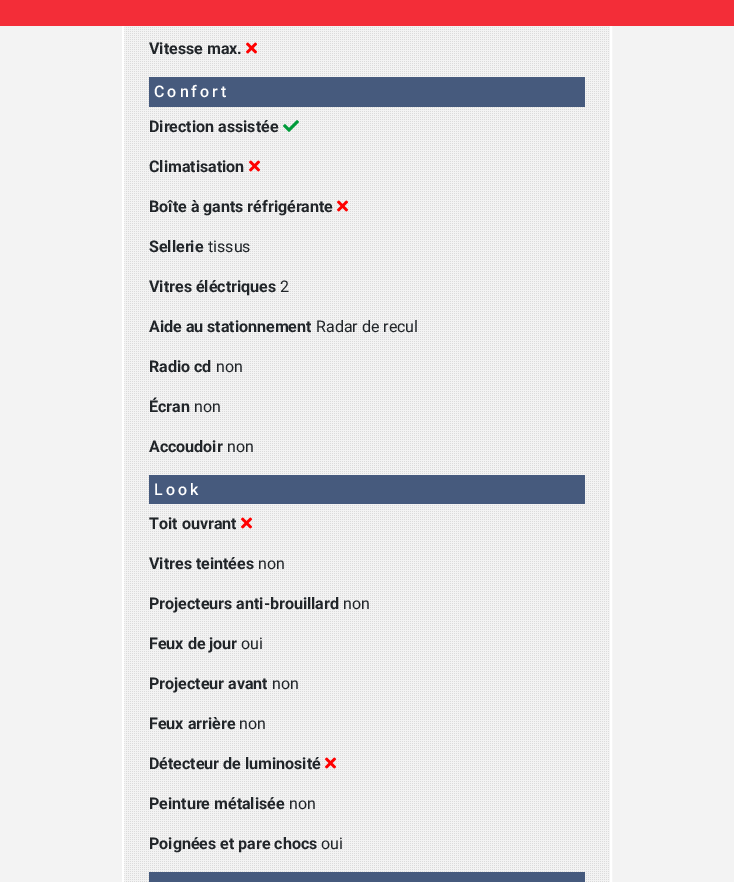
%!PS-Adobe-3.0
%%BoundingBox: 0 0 734 882
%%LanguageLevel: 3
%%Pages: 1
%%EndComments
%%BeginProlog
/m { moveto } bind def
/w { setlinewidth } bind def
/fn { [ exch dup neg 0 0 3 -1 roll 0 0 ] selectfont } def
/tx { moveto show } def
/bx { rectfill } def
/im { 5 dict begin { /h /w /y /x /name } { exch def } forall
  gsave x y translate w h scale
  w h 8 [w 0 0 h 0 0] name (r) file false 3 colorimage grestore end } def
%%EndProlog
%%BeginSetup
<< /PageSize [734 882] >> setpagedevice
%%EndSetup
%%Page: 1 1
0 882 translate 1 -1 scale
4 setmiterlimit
0.953 setgray
0 0 734 882 bx
(image0.raw) 124 27 485 855 im
1 setgray
2 w
123 -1 488 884 rectstroke
0.953 0.176 0.22 setrgbcolor
0 0 734 26 bx
/Roboto-Bold 16 fn
0.129 0.145 0.161 setrgbcolor
(Vitesse max.) 149 54 tx
(image1.raw) 246 42 11 12 im
0.275 0.353 0.49 setrgbcolor
149 77 436 30 bx
/Roboto-Medium 16 fn
1 setgray
154 97 m 3 0 (Confort) ashow
/Roboto-Bold 16 fn
0.129 0.145 0.161 setrgbcolor
(Direction assistée) 149 132 tx
(image2.raw) 283 120 16 12 im
(Climatisation) 149 172 tx
(image3.raw) 249 160 11 12 im
(Boîte à gants réfrigérante) 149 212 tx
(image3.raw) 337 200 11 12 im
(Sellerie) 149 252 tx
/Roboto-Regular 16 fn
(tissus) 208 252 tx
/Roboto-Bold 16 fn
(Vitres éléctriques) 149 292 tx
/Roboto-Regular 16 fn
(2) 280 292 tx
/Roboto-Bold 16 fn
(Aide au stationnement) 149 332 tx
/Roboto-Regular 16 fn
(Radar de recul) 316 332 tx
/Roboto-Bold 16 fn
(Radio cd) 149 372 tx
/Roboto-Regular 16 fn
(non) 216 372 tx
/Roboto-Bold 16 fn
(Écran) 149 412 tx
/Roboto-Regular 16 fn
(non) 194 412 tx
/Roboto-Bold 16 fn
(Accoudoir) 149 452 tx
/Roboto-Regular 16 fn
(non) 227 452 tx
0.275 0.353 0.49 setrgbcolor
149 475 436 29 bx
/Roboto-Medium 16 fn
1 setgray
154 495 m 3 0 (Look) ashow
/Roboto-Bold 16 fn
0.129 0.145 0.161 setrgbcolor
(Toit ouvrant) 149 529 tx
(image4.raw) 241 517 11 12 im
(Vitres teintées) 149 569 tx
/Roboto-Regular 16 fn
(non) 258 569 tx
/Roboto-Bold 16 fn
(Projecteurs anti-brouillard) 149 609 tx
/Roboto-Regular 16 fn
(non) 343 609 tx
/Roboto-Bold 16 fn
(Feux de jour) 149 649 tx
/Roboto-Regular 16 fn
(oui) 241 649 tx
/Roboto-Bold 16 fn
(Projecteur avant) 149 689 tx
/Roboto-Regular 16 fn
(non) 272 689 tx
/Roboto-Bold 16 fn
(Feux arrière) 149 729 tx
/Roboto-Regular 16 fn
(non) 239 729 tx
/Roboto-Bold 16 fn
(Détecteur de luminosité) 149 769 tx
(image4.raw) 325 757 11 12 im
(Peinture métalisée) 149 809 tx
/Roboto-Regular 16 fn
(non) 289 809 tx
/Roboto-Bold 16 fn
(Poignées et pare chocs) 149 849 tx
/Roboto-Regular 16 fn
(oui) 321 849 tx
0.275 0.353 0.49 setrgbcolor
149 872 436 10 bx
showpage
%%EOF
